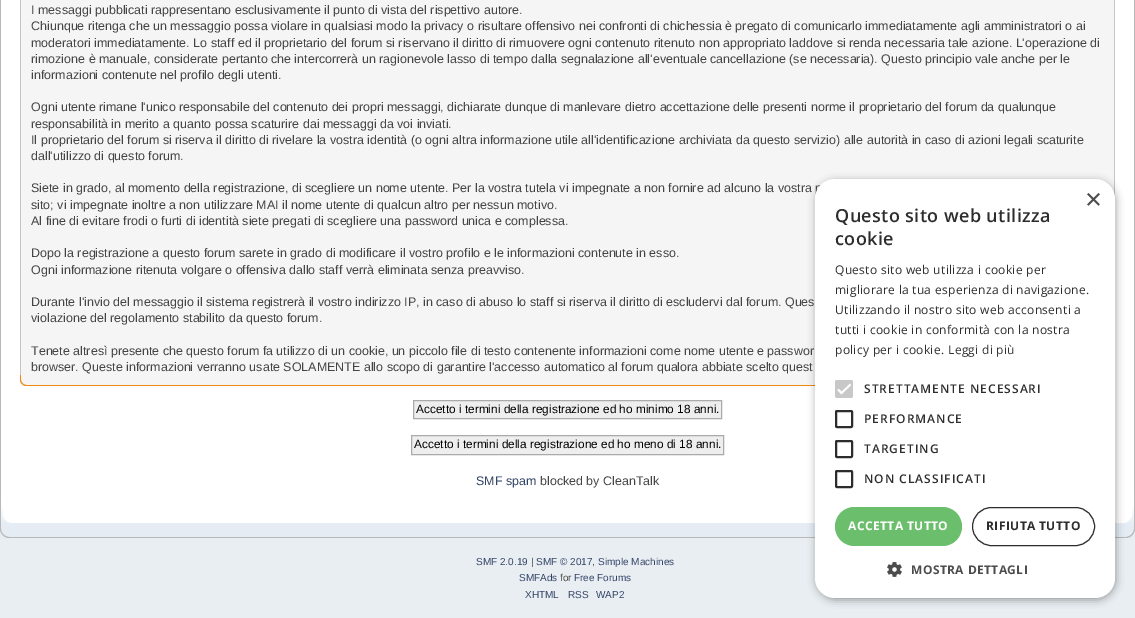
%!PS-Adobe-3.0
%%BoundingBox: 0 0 1135 618
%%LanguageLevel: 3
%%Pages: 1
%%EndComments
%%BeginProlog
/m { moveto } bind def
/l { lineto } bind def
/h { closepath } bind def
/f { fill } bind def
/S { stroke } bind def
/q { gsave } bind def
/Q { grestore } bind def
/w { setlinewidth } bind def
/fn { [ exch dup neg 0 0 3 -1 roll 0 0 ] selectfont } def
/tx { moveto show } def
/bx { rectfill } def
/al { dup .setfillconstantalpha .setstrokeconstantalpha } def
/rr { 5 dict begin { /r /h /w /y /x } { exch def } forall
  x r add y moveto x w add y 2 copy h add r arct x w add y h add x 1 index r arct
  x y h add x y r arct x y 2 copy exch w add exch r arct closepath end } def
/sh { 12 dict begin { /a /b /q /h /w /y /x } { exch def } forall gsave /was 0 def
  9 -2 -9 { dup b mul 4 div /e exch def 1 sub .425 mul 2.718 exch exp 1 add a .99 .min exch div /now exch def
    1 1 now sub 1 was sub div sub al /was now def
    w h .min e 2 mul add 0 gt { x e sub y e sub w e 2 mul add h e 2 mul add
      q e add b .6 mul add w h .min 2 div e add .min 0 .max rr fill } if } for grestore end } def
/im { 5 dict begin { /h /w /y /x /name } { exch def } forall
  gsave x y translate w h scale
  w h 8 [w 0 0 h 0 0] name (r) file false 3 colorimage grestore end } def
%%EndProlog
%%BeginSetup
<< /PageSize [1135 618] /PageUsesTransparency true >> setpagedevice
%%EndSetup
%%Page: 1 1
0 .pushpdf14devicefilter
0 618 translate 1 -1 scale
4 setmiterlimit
0.914 0.933 0.949 setrgbcolor
0 0 1135 618 bx
1 setgray
1 0 1133 494 bx
0.718 setgray
0 0 1 494 bx
1134 0 1 494 bx
0.961 setgray
21 0 1093 375 bx
0.773 setgray
1114 0 1 199 bx
20 0 1 375 bx
/LiberationSans-Regular 12.48 fn
0.267 setgray
(I messaggi pubblicati rappresentano esclusivamente il punto di vista del rispettivo autore.) 31 14 tx
(Chiunque ritenga che un messaggio possa violare in qualsiasi modo la privacy o risultare offensivo nei confronti di chichessia è pregato di comunicarlo immediatamente agli amministratori o ai) 31 30 tx
(moderatori immediatamente. Lo staff ed il proprietario del forum si riservano il diritto di rimuovere ogni contenuto ritenuto non appropriato laddove si renda necessaria tale azione. L'operazione di) 31 47 tx
(rimozione è manuale, considerate pertanto che intercorrerà un ragionevole lasso di tempo dalla segnalazione all'eventuale cancellazione \(se necessaria\). Questo principio vale anche per le) 31 63 tx
(informazioni contenute nel profilo degli utenti.) 31 79 tx
(Ogni utente rimane l'unico responsabile del contenuto dei propri messaggi, dichiarate dunque di manlevare dietro accettazione delle presenti norme il proprietario del forum da qualunque) 31 111 tx
(responsabilità in merito a quanto possa scaturire dai messaggi da voi inviati.) 31 128 tx
(Il proprietario del forum si riserva il diritto di rivelare la vostra identità \(o ogni altra informazione utile all'identificazione archiviata da questo servizio\) alle autorità in caso di azioni legali scaturite) 31 144 tx
(dall'utilizzo di questo forum.) 31 160 tx
(Siete in grado, al momento della registrazione, di scegliere un nome utente. Per la vostra tutela vi impegnate a non fornire ad alcuno la vostra p) 31 192 tx
(sito; vi impegnate inoltre a non utilizzare MAI il nome utente di qualcun altro per nessun motivo.) 31 209 tx
(Al fine di evitare frodi o furti di identità siete pregati di scegliere una password unica e complessa.) 31 225 tx
(Dopo la registrazione a questo forum sarete in grado di modificare il vostro profilo e le informazioni contenute in esso.) 31 257 tx
(Ogni informazione ritenuta volgare o offensiva dallo staff verrà eliminata senza preavviso.) 31 274 tx
(Durante l'invio del messaggio il sistema registrerà il vostro indirizzo IP, in caso di abuso lo staff si riserva il diritto di escludervi dal forum. Ques) 31 306 tx
(violazione del regolamento stabilito da questo forum.) 31 322 tx
(Tenete altresì presente che questo forum fa utilizzo di un cookie, un piccolo file di testo contenente informazioni come nome utente e passwor) 31 355 tx
(browser. Queste informazioni verranno usate SOLAMENTE allo scopo di garantire l'accesso automatico al forum qualora abbiate scelto quest) 31 371 tx
(image0.raw) 20 375 795 11 im
0.933 setgray
413.5 400.5 m 721.5 400.5 l 721.5 418.5 l 413.5 418.5 l h q f Q
0.667 setgray
S
/LiberationSans-Regular 11.85 fn
0 setgray
(Accetto i termini della registrazione ed ho minimo 18 anni.) 416 413 tx
0.933 setgray
411.5 435.5 m 723.5 435.5 l 723.5 454.5 l 411.5 454.5 l h q f Q
0.667 setgray
S
0 setgray
(Accetto i termini della registrazione ed ho meno di 18 anni.) 414 448 tx
/LiberationSans-Regular 12.48 fn
0.2 0.267 0.4 setrgbcolor
(SMF spam) 476 485 tx
0.267 setgray
(blocked by CleanTalk) 540 485 tx
(image1.raw) 0 494 1125 44 im
(image2.raw) 1125 494 10 44 im
/LiberationSans-Regular 10 fn
0.2 0.267 0.4 setrgbcolor
(SMF 2.0.19) 476 565 tx
0.267 setgray
(|) 531 565 tx
0.2 0.267 0.4 setrgbcolor
(SMF © 2017) 536 565 tx
0.267 setgray
(,) 592 565 tx
0.2 0.267 0.4 setrgbcolor
(Simple Machines) 598 565 tx
(SMFAds) 519 581 tx
0.267 setgray
(for) 560 581 tx
0.2 0.267 0.4 setrgbcolor
(Free Forums) 574 581 tx
(XHTML) 525 598 tx
(RSS) 568 598 tx
(WAP2) 596 598 tx
0 setgray
816 181 300 419 20 4 0.35 sh
1 setgray
815 179 300 419 20 rr f
/LiberationSans-Regular 29 fn
0.302 setgray
(×) 1085 209 tx
/OpenSans-SemiBold 18 fn
0.176 setgray
835 222 m 0.4 0 (Questo sito web utilizza) ashow
835 245 m 0.4 0 (cookie) ashow
/OpenSans-Regular 12 fn
835 274 m 0.3 0 (Questo sito web utilizza i cookie per) ashow
835 294 m 0.3 0 (migliorare la tua esperienza di navigazione.) ashow
835 314 m 0.3 0 (Utilizzando il nostro sito web acconsenti a) ashow
835 334 m 0.3 0 (tutti i cookie in conformità con la nostra) ashow
835 354 m 0.3 0 (policy per i cookie.) ashow
0.2 setgray
948 354 m 0.3 0 (Leggi di più) ashow
0.784 setgray
835 380 18 18 2 rr f
1 setgray
1.8 w
838 389.5 m 841.5 393 l 850.5 384.5 l S
/OpenSans-SemiBold 12 fn
0.176 setgray
864 393 m 1 0 (STRETTAMENTE NECESSARI) ashow
2 w
836 411 16 16 1 rr S
864 423 m 1 0 (PERFORMANCE) ashow
836 441 16 16 1 rr S
864 453 m 1 0 (TARGETING) ashow
836 471 16 16 1 rr S
864 483 m 1 0 (NON CLASSIFICATI) ashow
0.42 0.745 0.42 setrgbcolor
835 507 127 39 19.5 rr f
/OpenSans-Bold 12 fn
1 setgray
848 530 m 0.4 0 (ACCETTA TUTTO) ashow
0.176 setgray
1 w
972.5 507.5 122 38 19 rr S
986 530 m 0.4 0 (RIFIUTA TUTTO) ashow
(image3.raw) 887 562 15 15 im
0.302 setgray
911 574 m 0.4 0 (MOSTRA DETTAGLI) ashow
.poppdf14devicefilter showpage
%%EOF
